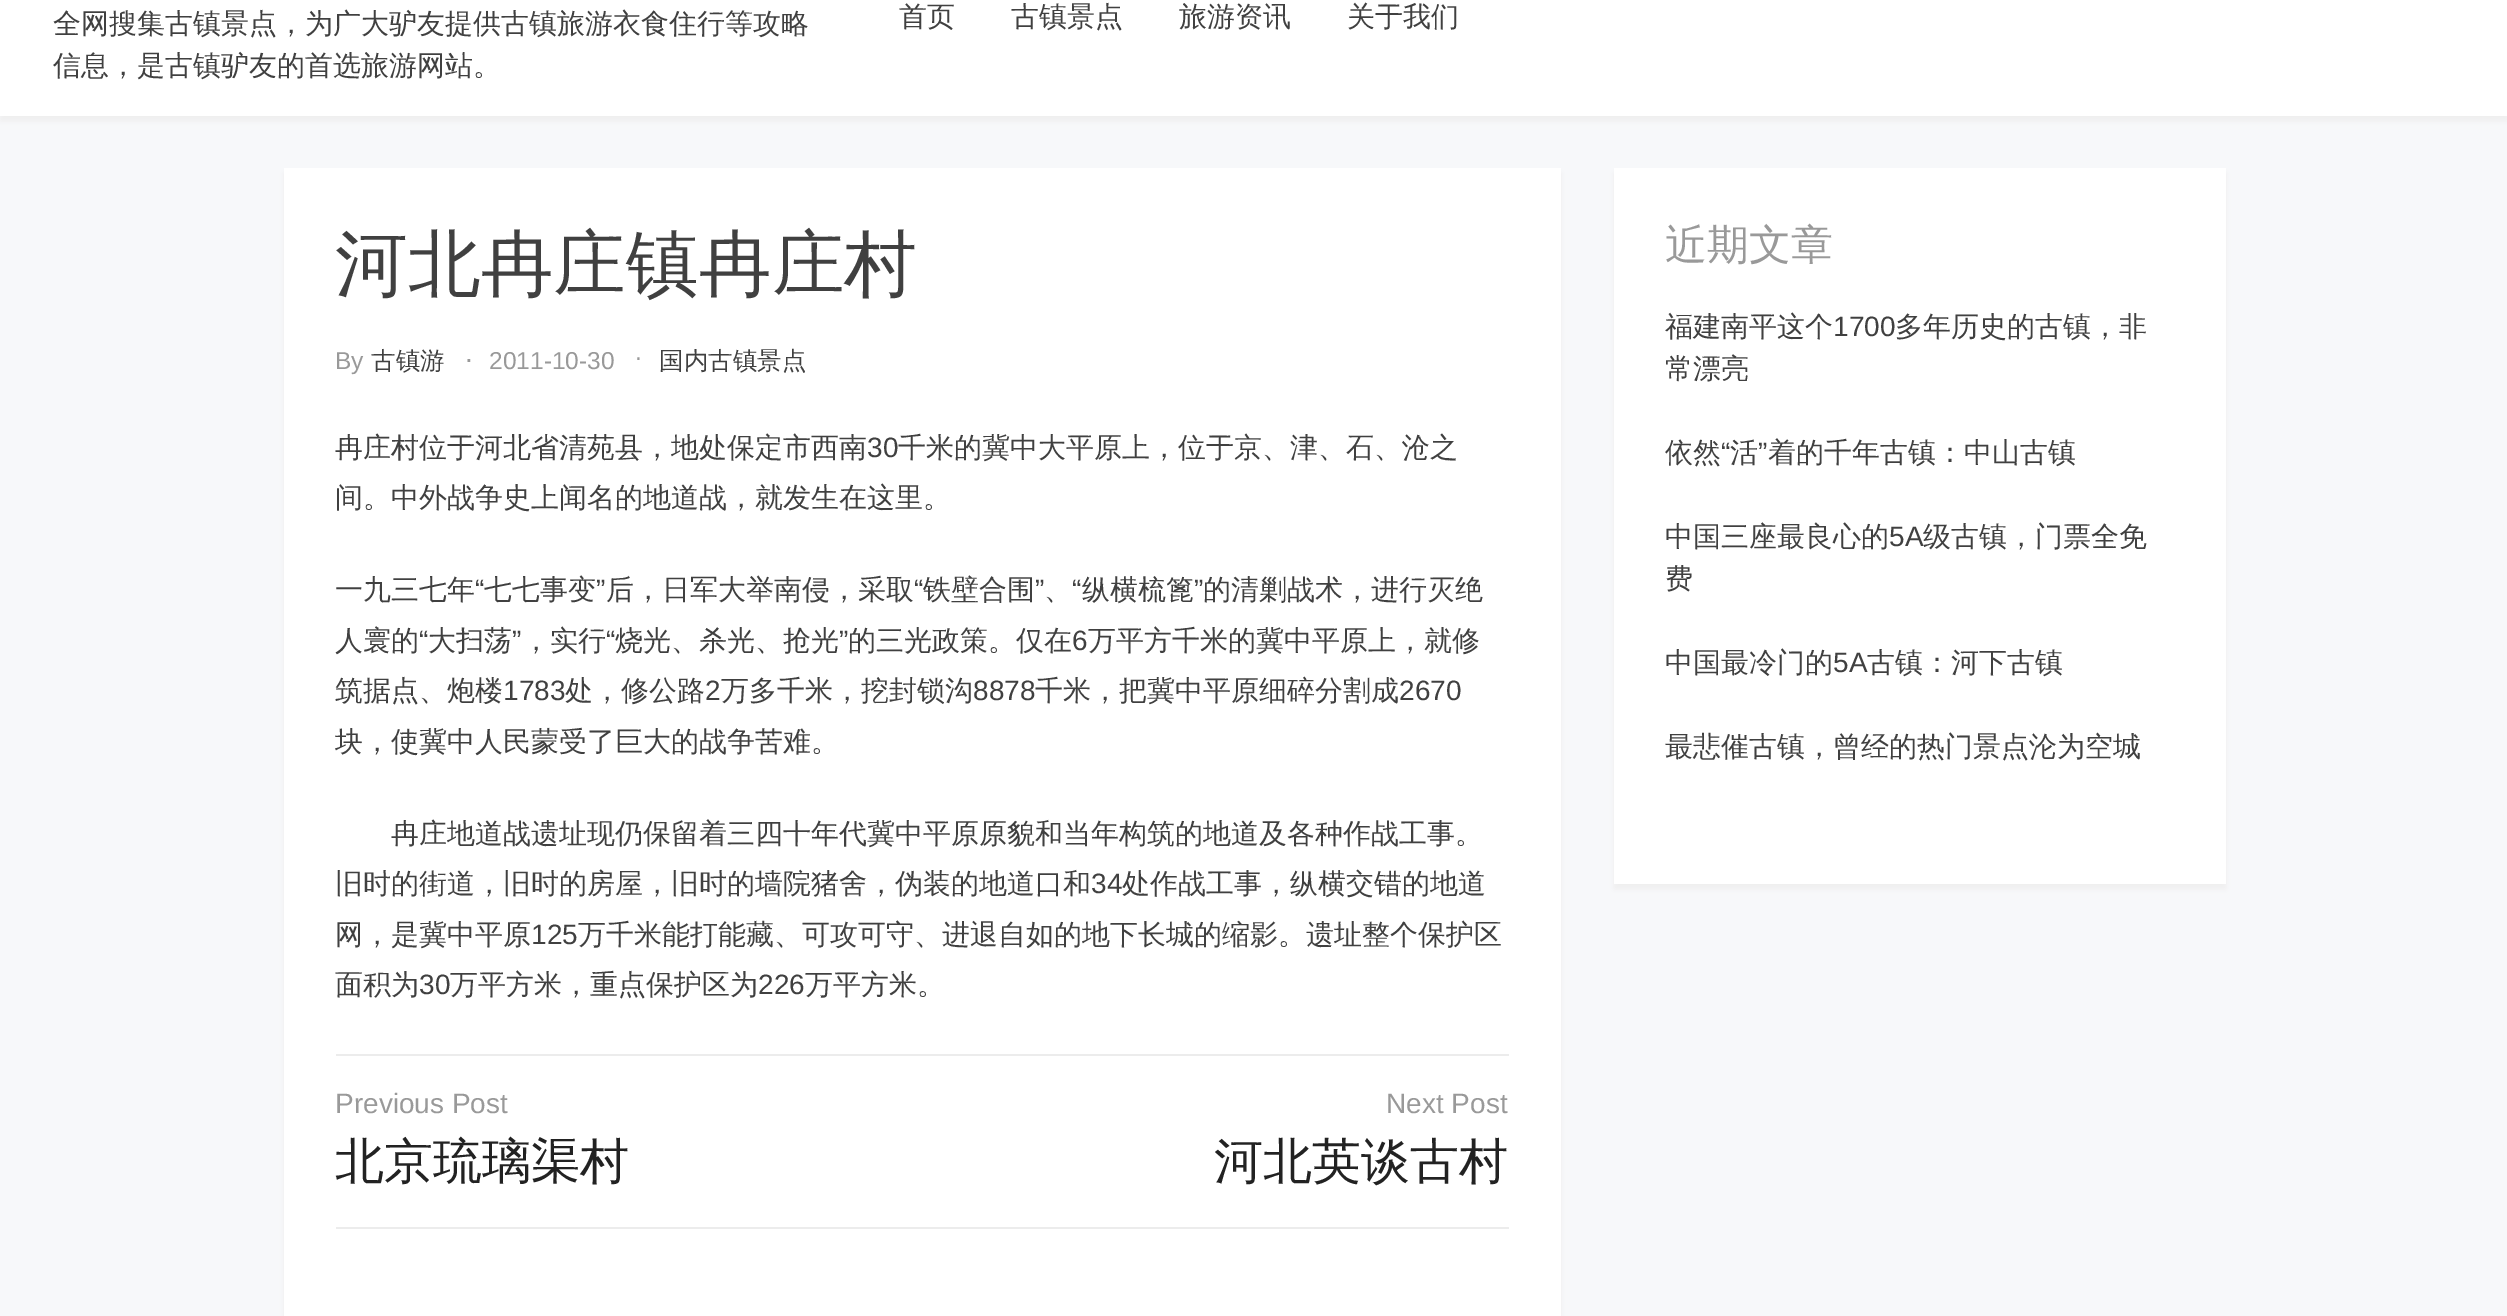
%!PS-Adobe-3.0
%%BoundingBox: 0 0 2507 1316
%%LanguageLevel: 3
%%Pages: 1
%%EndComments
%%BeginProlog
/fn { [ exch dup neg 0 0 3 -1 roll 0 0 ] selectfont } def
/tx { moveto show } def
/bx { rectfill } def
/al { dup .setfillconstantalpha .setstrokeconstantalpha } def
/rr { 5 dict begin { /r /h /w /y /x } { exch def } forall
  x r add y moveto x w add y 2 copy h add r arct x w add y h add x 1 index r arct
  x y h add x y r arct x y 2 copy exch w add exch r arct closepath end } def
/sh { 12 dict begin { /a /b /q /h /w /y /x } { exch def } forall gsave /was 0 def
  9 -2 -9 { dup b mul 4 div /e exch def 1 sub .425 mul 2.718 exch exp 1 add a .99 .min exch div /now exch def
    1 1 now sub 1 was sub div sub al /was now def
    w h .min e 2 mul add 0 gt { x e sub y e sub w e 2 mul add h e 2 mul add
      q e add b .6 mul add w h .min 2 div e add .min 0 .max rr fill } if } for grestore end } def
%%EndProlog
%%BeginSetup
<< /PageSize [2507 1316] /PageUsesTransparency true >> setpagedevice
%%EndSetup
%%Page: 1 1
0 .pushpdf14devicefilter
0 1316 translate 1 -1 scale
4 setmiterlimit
0.969 0.973 0.98 setrgbcolor
0 0 2507 1316 bx
0.933 setgray
0 -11 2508 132 0 3.5 1 sh
1 setgray
0 0 2507 116 bx
/WenQuanYiZenHei-Medium 28 fn
0.251 setgray
(全网搜集古镇景点，为广大驴友提供古镇旅游衣食住行等攻略) 53 33 tx
(信息，是古镇驴友的首选旅游网站。) 53 75 tx
(首页) 899 26 tx
(古镇景点) 1011 26 tx
(旅游资讯) 1179 26 tx
(关于我们) 1347 26 tx
0.933 setgray
284 173 1277 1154 0 3.5 1 sh
1 setgray
284 168 1277 1148 bx
/WenQuanYiZenHei-Medium 72.75 fn
0.251 setgray
(河北冉庄镇冉庄村) 335 289 tx
/LiberationSans-Regular 24.5 fn
0.6 setgray
(By) 335 369 tx
/WenQuanYiZenHei-Medium 24.5 fn
0.251 setgray
(古镇游) 371 369 tx
/LiberationSans-Regular 28 fn
0.6 setgray
(.) 465 362 tx
/LiberationSans-Regular 24.5 fn
(2011-10-30) 489 369 tx
(.) 635 360 tx
/WenQuanYiZenHei-Medium 24.5 fn
0.251 setgray
(国内古镇景点) 659 369 tx
/WenQuanYiZenHei-Medium 28 fn
(冉庄村位于河北省清苑县，地处保定市西南) 335 457 tx
/LiberationSans-Regular 28 fn
(30) 867 457 tx
/WenQuanYiZenHei-Medium 28 fn
(千米的冀中大平原上，位于京、津、石、沧之) 898 457 tx
(间。中外战争史上闻名的地道战，就发生在这里。) 335 507 tx
(一九三七年) 335 599 tx
/LiberationSans-Regular 28 fn
(“) 475 599 tx
/WenQuanYiZenHei-Medium 28 fn
(七七事变) 484 599 tx
/LiberationSans-Regular 28 fn
(”) 596 599 tx
/WenQuanYiZenHei-Medium 28 fn
(后，日军大举南侵，采取) 606 599 tx
/LiberationSans-Regular 28 fn
(“) 914 599 tx
/WenQuanYiZenHei-Medium 28 fn
(铁壁合围) 923 599 tx
/LiberationSans-Regular 28 fn
(”) 1035 599 tx
(“) 1072 599 tx
/WenQuanYiZenHei-Medium 28 fn
(纵横梳篦) 1082 599 tx
/LiberationSans-Regular 28 fn
(”) 1194 599 tx
/WenQuanYiZenHei-Medium 28 fn
(的清剿战术，进行灭绝) 1203 599 tx
(、) 1044 599 tx
(人寰的) 335 650 tx
/LiberationSans-Regular 28 fn
(“) 419 650 tx
/WenQuanYiZenHei-Medium 28 fn
(大扫荡) 428 650 tx
/LiberationSans-Regular 28 fn
(”) 512 650 tx
/WenQuanYiZenHei-Medium 28 fn
(，实行) 522 650 tx
/LiberationSans-Regular 28 fn
(“) 606 650 tx
/WenQuanYiZenHei-Medium 28 fn
(烧光、杀光、抢光) 615 650 tx
/LiberationSans-Regular 28 fn
(”) 839 650 tx
/WenQuanYiZenHei-Medium 28 fn
(的三光政策。仅在) 848 650 tx
/LiberationSans-Regular 28 fn
(6) 1072 650 tx
/WenQuanYiZenHei-Medium 28 fn
(万平方千米的冀中平原上，就修) 1088 650 tx
(筑据点、炮楼) 335 700 tx
/LiberationSans-Regular 28 fn
(1783) 503 700 tx
/WenQuanYiZenHei-Medium 28 fn
(处，修公路) 565 700 tx
/LiberationSans-Regular 28 fn
(2) 705 700 tx
/WenQuanYiZenHei-Medium 28 fn
(万多千米，挖封锁沟) 721 700 tx
/LiberationSans-Regular 28 fn
(8878) 973 700 tx
/WenQuanYiZenHei-Medium 28 fn
(千米，把冀中平原细碎分割成) 1035 700 tx
/LiberationSans-Regular 28 fn
(2670) 1399 700 tx
/WenQuanYiZenHei-Medium 28 fn
(块，使冀中人民蒙受了巨大的战争苦难。) 335 751 tx
(冉庄地道战遗址现仍保留着三四十年代冀中平原原貌和当年构筑的地道及各种作战工事。) 391 843 tx
(旧时的街道，旧时的房屋，旧时的墙院猪舍，伪装的地道口和) 335 893 tx
/LiberationSans-Regular 28 fn
(34) 1091 893 tx
/WenQuanYiZenHei-Medium 28 fn
(处作战工事，纵横交错的地道) 1122 893 tx
(网，是冀中平原) 335 944 tx
/LiberationSans-Regular 28 fn
(125) 531 944 tx
/WenQuanYiZenHei-Medium 28 fn
(万千米能打能藏、可攻可守、进退自如的地下长城的缩影。遗址整个保护区) 578 944 tx
(面积为) 335 994 tx
/LiberationSans-Regular 28 fn
(30) 419 994 tx
/WenQuanYiZenHei-Medium 28 fn
(万平方米，重点保护区为) 450 994 tx
/LiberationSans-Regular 28 fn
(226) 758 994 tx
/WenQuanYiZenHei-Medium 28 fn
(万平方米。) 805 994 tx
0.925 setgray
336 1054 1173 2 bx
336 1227 1173 2 bx
/LiberationSans-Regular 28 fn
0.6 setgray
(Previous Post) 335 1113 tx
/WenQuanYiZenHei-Medium 49 fn
0.133 setgray
(北京琉璃渠村) 335 1178 tx
/LiberationSans-Regular 28 fn
0.6 setgray
(Next Post) 1386 1113 tx
/WenQuanYiZenHei-Medium 49 fn
0.133 setgray
(河北英谈古村) 1214 1178 tx
0.933 setgray
1614 173 612 716 0 3.5 1 sh
1 setgray
1614 168 612 716 bx
/WenQuanYiZenHei-Medium 42 fn
0.6 setgray
(近期文章) 1665 259 tx
/WenQuanYiZenHei-Medium 28 fn
0.251 setgray
(福建南平这个) 1665 336 tx
/LiberationSans-Regular 28 fn
(1700) 1833 336 tx
/WenQuanYiZenHei-Medium 28 fn
(多年历史的古镇，非) 1895 336 tx
(常漂亮) 1665 378 tx
(依然) 1665 462 tx
/LiberationSans-Regular 28 fn
(“) 1721 462 tx
/WenQuanYiZenHei-Medium 28 fn
(活) 1730 462 tx
/LiberationSans-Regular 28 fn
(”) 1758 462 tx
/WenQuanYiZenHei-Medium 28 fn
(着的千年古镇：中山古镇) 1768 462 tx
(中国三座最良心的) 1665 546 tx
/LiberationSans-Regular 28 fn
(5A) 1889 546 tx
/WenQuanYiZenHei-Medium 28 fn
(级古镇，门票全免) 1923 546 tx
(费) 1665 588 tx
(中国最冷门的) 1665 672 tx
/LiberationSans-Regular 28 fn
(5A) 1833 672 tx
/WenQuanYiZenHei-Medium 28 fn
(古镇：河下古镇) 1867 672 tx
(最悲催古镇，曾经的热门景点沦为空城) 1665 756 tx
.poppdf14devicefilter showpage
%%EOF
